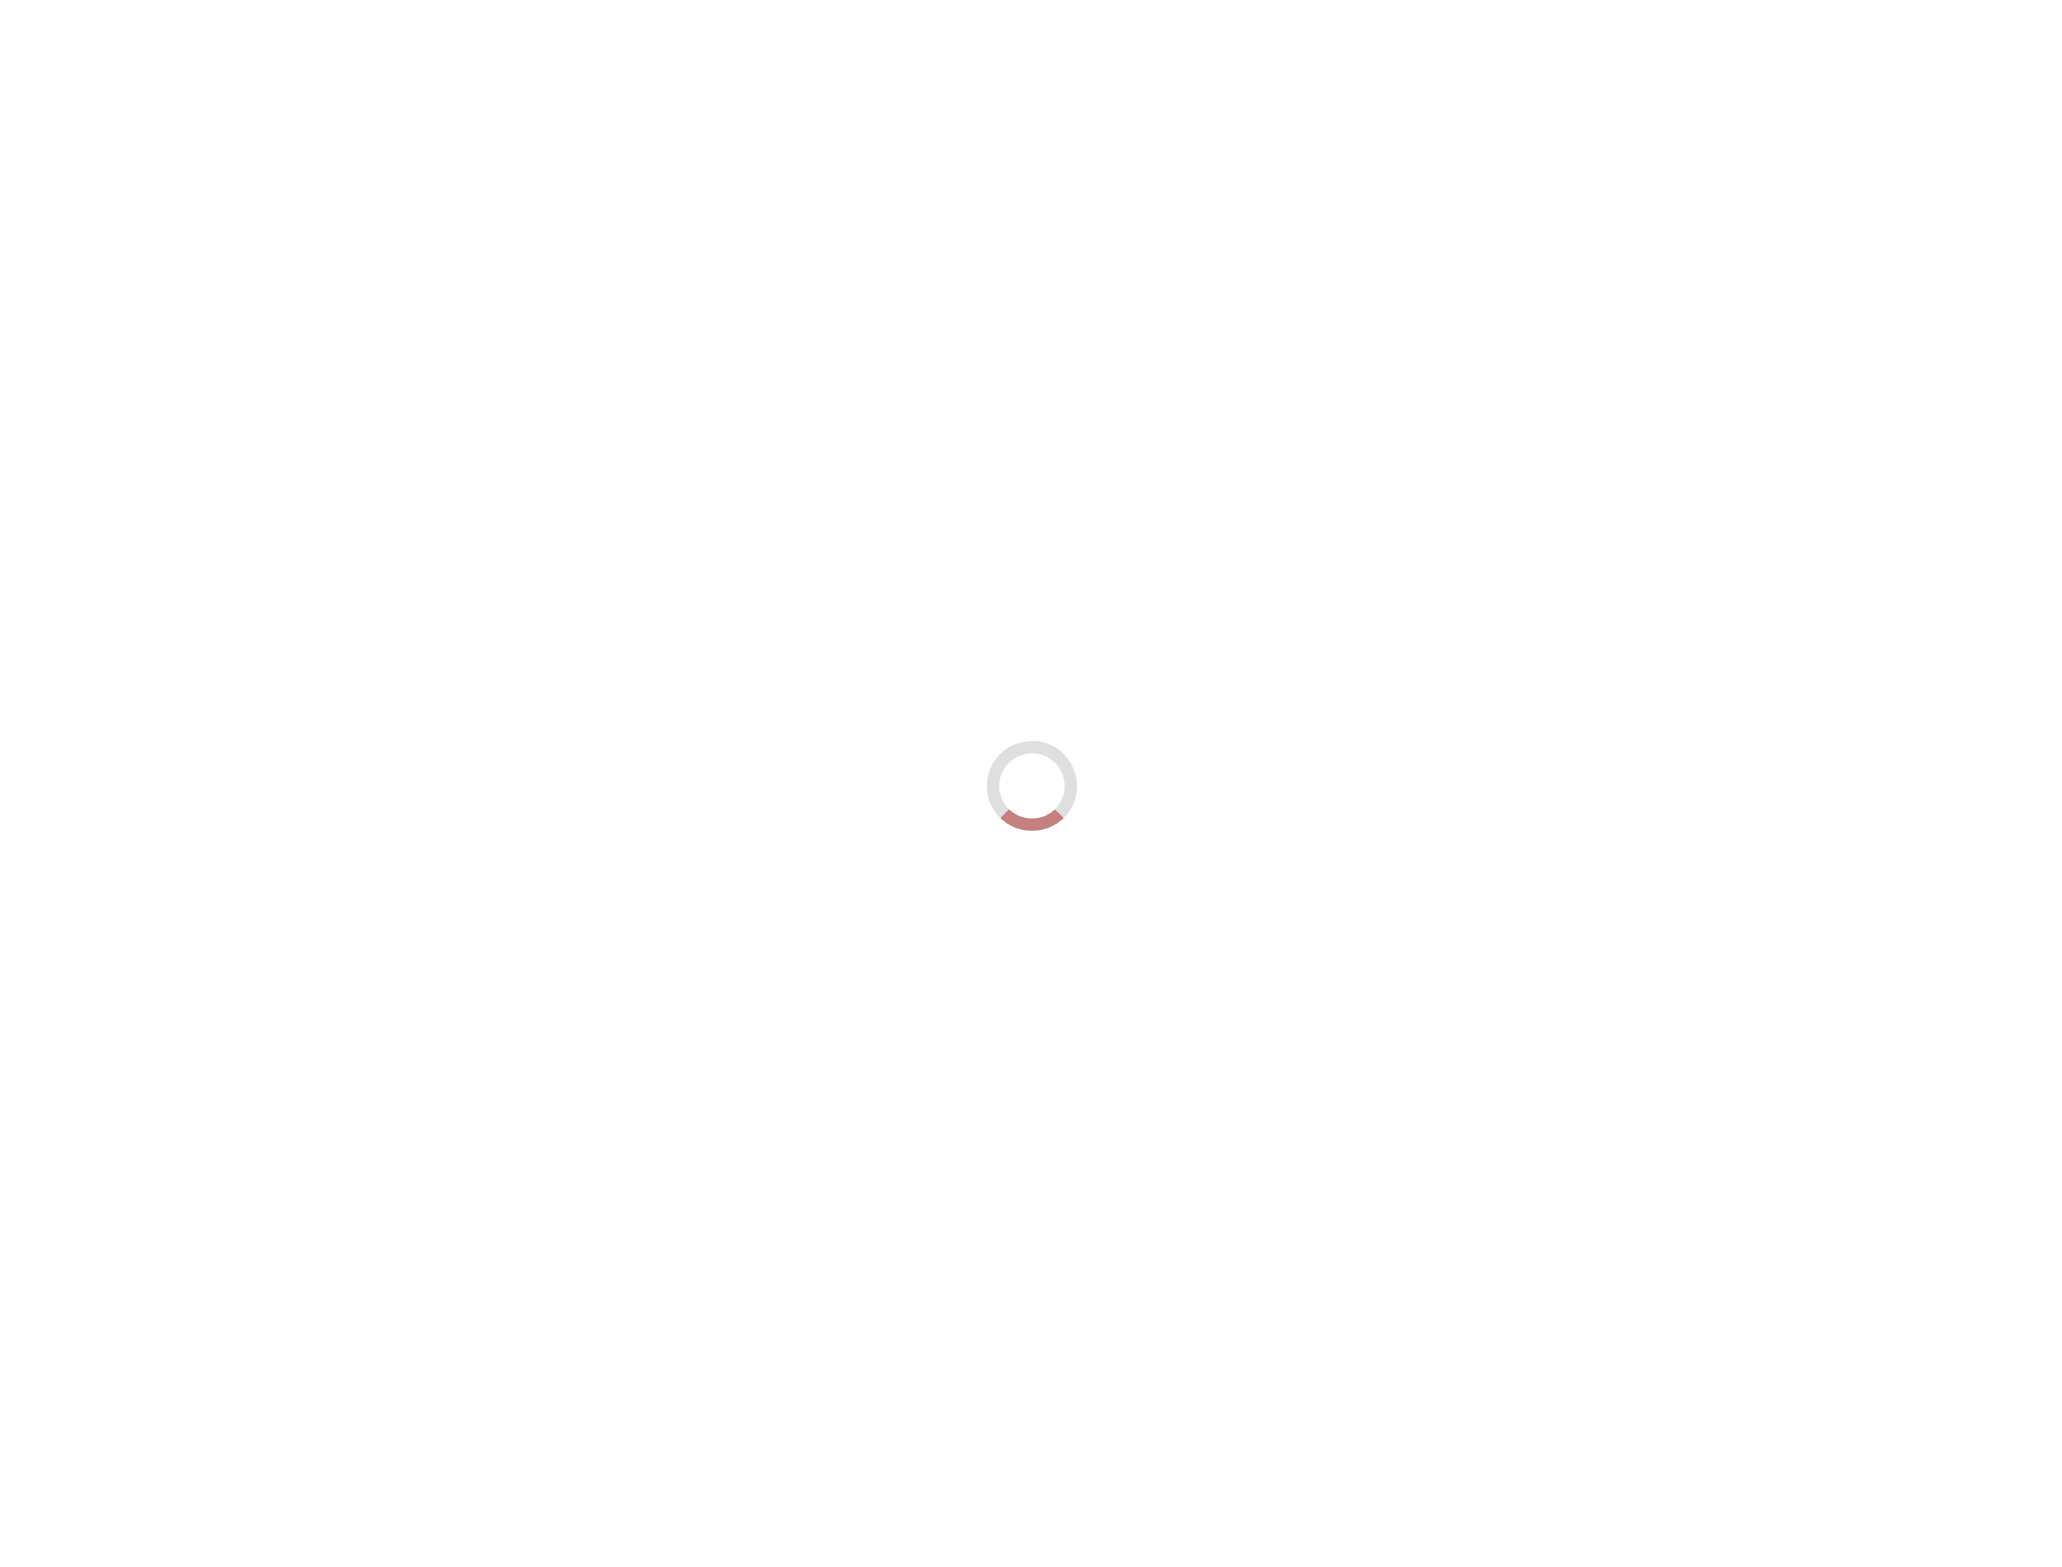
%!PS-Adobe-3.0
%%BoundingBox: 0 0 2062 1567
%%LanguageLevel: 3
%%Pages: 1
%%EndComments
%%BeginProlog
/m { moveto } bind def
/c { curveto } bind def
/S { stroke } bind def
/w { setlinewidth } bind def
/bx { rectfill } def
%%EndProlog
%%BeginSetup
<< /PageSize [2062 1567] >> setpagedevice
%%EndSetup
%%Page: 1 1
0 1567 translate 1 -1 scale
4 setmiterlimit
1 setgray
0 0 2062 1567 bx
0.769 0.498 0.494 setrgbcolor
12 w
1059.5 813.5 m 1044.5 828.5 1019.5 828.5 1004.5 813.5 c S
0.875 setgray
1004.5 813.5 m 997 806.5 993 796.5 993 786 c 993 751.5 1035 734 1059.5 758.5 c 1065 764 1068.5 771 1070 778.5 c 1073 791 1068.5 804.5 1059.5 813.5 c S
showpage
%%EOF
